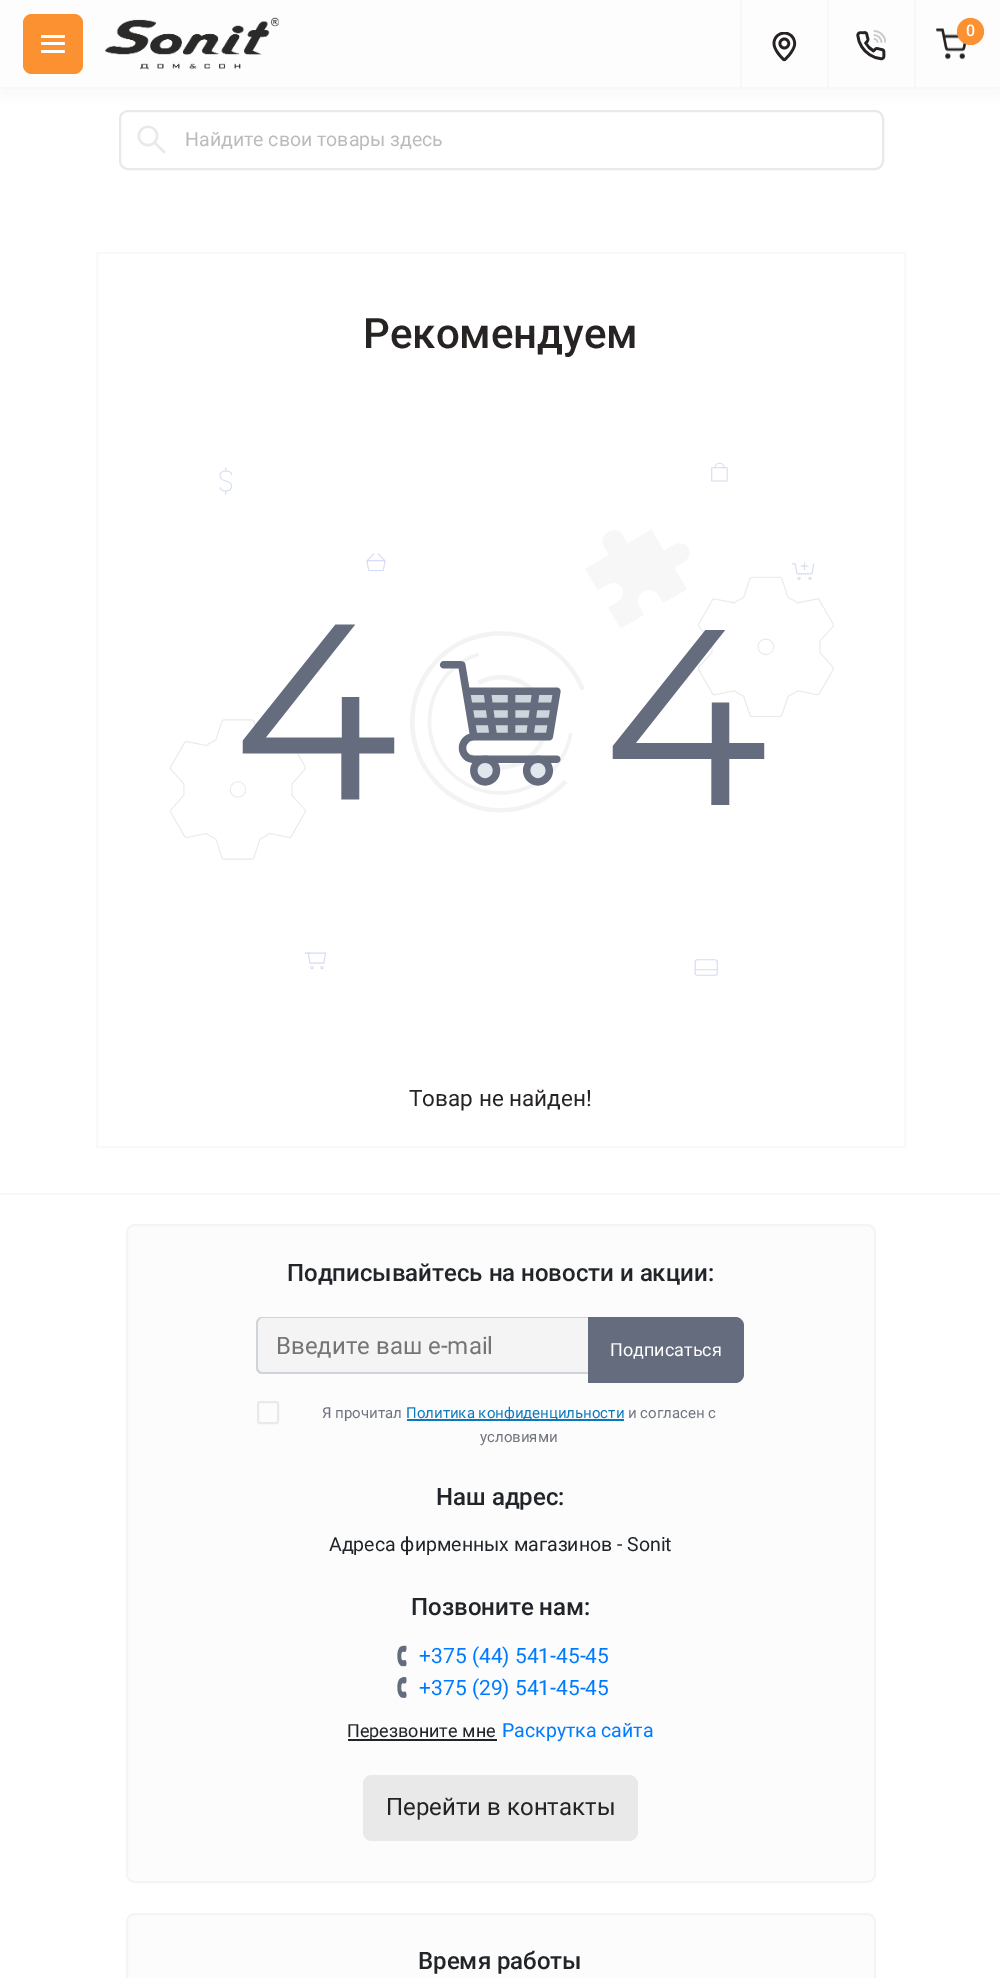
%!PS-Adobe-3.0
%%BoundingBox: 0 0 1000 1978
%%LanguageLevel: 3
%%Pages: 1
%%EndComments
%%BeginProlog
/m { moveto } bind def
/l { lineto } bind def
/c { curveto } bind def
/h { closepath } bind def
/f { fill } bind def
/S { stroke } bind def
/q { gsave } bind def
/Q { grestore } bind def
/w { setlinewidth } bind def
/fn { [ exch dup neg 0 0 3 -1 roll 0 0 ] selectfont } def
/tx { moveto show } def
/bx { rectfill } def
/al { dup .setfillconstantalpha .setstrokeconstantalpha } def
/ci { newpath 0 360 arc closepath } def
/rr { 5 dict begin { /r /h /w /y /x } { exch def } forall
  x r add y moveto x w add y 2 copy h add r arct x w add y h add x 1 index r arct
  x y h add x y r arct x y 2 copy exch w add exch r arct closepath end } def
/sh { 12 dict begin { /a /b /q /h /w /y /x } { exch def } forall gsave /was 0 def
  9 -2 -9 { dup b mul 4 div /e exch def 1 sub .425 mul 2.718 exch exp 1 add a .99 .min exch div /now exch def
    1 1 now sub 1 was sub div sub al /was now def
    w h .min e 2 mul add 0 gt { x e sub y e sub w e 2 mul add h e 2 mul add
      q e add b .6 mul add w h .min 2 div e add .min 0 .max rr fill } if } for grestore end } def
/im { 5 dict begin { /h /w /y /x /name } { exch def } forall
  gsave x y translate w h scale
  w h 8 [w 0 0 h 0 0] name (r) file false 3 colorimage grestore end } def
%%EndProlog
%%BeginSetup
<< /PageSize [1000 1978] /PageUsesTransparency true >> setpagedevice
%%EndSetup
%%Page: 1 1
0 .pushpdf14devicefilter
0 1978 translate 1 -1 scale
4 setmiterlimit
1 setgray
0 0 1000 1978 bx
0.914 setgray
2 w
120 111 763 58 8 rr S
0 setgray
0 0 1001 87 0 11 0.06 sh
0.992 setgray
0 0 1000 87 bx
0.984 0.569 0.188 setrgbcolor
23 14 60 60 9 rr f
1 setgray
41 35 24 3 1.5 rr f
41 42 24 3 1.5 rr f
41 50 24 3 1.5 rr f
0.969 setgray
740 0 2 87 bx
(image0.raw) 772 32 25 30 im
827 0 2 87 bx
(image1.raw) 856 30 30 31 im
(image2.raw) 105 17 174 53 im
914 0 2 87 bx
(image3.raw) 936 28 31 32 im
0.984 0.569 0.188 setrgbcolor
970.5 31.5 13.5 ci f
/Roboto-Medium 16 fn
1 setgray
(0) 966 36 tx
(image4.raw) 137 125 29 29 im
/Roboto-Regular 19.5 fn
0.733 setgray
(Найдите свои товары здесь) 185 146 tx
0.976 0.976 0.988 setrgbcolor
97 253 808 894 rectstroke
/Roboto-Medium 42 fn
0.153 0.137 0.137 setrgbcolor
(Рекомендуем) 363 348 tx
(image5.raw) 170 462 664 514 im
/Roboto-Regular 22.5 fn
(Товар не найден!) 409 1106 tx
0.976 0.976 0.988 setrgbcolor
0 1193 1000 2 bx
0.988 setgray
127 1225 748 657 8 rr q f Q
0.957 setgray
S
/Roboto-Medium 24 fn
0.129 0.145 0.161 setrgbcolor
(Подписывайтесь на новости и акции:) 287 1281 tx
0.957 setgray
263 1317 m 588 1317 l 588 1374 l 263 1374 l 259.5 1374 257 1371.5 257 1368 c 257 1323 l 257 1319.5 259.5 1317 263 1317 c h f
0.808 0.831 0.855 setrgbcolor
262 1317 m 588 1317 l 588 1374 l 262 1374 l 259 1374 256 1371 256 1368 c 256 1323 l 256 1320 259 1317 262 1317 c h 262 1318 m 588 1318 l 588 1372 l 262 1372 l 260 1372 258 1370 258 1368 c 258 1323 l 258 1321 260 1318 262 1318 c h eofill
/Roboto-Regular 24 fn
0.459 setgray
(Введите ваш e-mail) 276 1354 tx
0.396 0.424 0.49 setrgbcolor
588 1317 m 735 1317 l 740 1317 744 1321 744 1326 c 744 1374 l 744 1379 740 1383 735 1383 c 588 1383 l h f
/Roboto-Regular 18 fn
1 setgray
(Подписаться) 610 1356 tx
0.914 setgray
258 1402 20 21 2 rr S
/Roboto-Regular 15 fn
0.431 0.447 0.494 setrgbcolor
(Я прочитал) 322 1418 tx
0.039 0.471 0.749 setrgbcolor
407 1419 217 2 bx
(Политика конфиденцильности) 406 1418 tx
0.431 0.447 0.494 setrgbcolor
(и согласен с) 628 1418 tx
(условиями) 480 1442 tx
/Roboto-Medium 24 fn
0.129 0.145 0.161 setrgbcolor
(Наш адрес:) 436 1505 tx
/Roboto-Regular 19.5 fn
(Адреса фирменных магазинов - Sonit) 329 1551 tx
/Roboto-Medium 24 fn
(Позвоните нам:) 411 1615 tx
(image6.raw) 397 1645 10 22 im
/Roboto-Regular 21 fn
0 0.482 1 setrgbcolor
(+375 \(44\) 541-45-45) 419 1663 tx
(image7.raw) 397 1677 10 21 im
(+375 \(29\) 541-45-45) 419 1695 tx
0.129 0.145 0.161 setrgbcolor
348 1739 149 2 bx
/Roboto-Regular 18 fn
(Перезвоните мне) 347 1737 tx
/Roboto-Regular 19.5 fn
0 0.482 1 setrgbcolor
(Раскрутка сайта) 502 1737 tx
0.914 setgray
363 1775 275 66 9 rr f
/Roboto-Regular 24 fn
0.153 0.137 0.137 setrgbcolor
(Перейти в контакты) 386 1815 tx
0.988 setgray
127 1914 748 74 8 rr q f Q
0.957 setgray
S
/Roboto-Medium 24 fn
0.129 0.145 0.161 setrgbcolor
(Время работы) 418 1969 tx
.poppdf14devicefilter showpage
%%EOF
